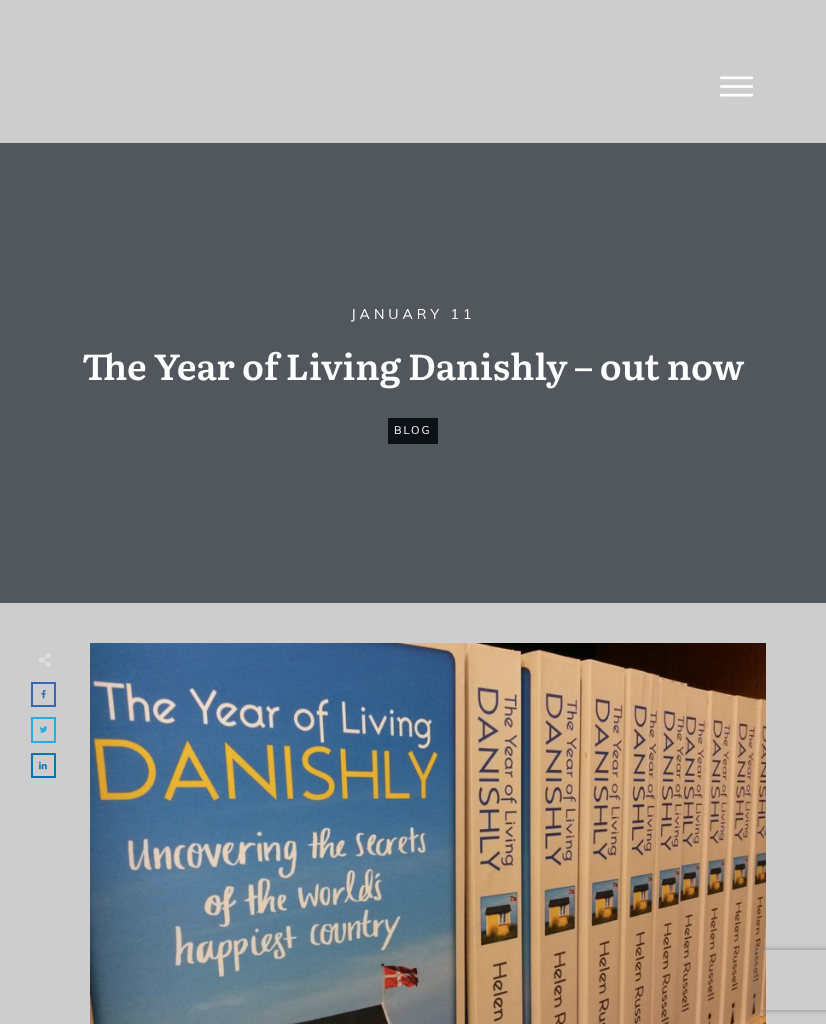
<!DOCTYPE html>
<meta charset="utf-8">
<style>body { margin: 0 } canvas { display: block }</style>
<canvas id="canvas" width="826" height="1024"></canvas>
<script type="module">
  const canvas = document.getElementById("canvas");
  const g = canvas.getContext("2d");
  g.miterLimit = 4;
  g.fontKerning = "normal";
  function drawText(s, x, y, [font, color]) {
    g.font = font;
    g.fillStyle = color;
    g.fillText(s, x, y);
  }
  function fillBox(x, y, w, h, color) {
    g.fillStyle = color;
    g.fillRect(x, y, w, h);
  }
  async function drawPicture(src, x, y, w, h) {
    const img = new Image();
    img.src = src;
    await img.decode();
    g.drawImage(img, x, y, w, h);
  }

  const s1 = ["14px Muli", "#FFFFFF"];
  const s2 = ["600 36px Literata", "#FFFFFF"];
  const s3 = ["11px Muli", "#FFFFFF"];

  fillBox(0, 0, 826, 1024, "#CDCDCD");
  await drawPicture("pic1.png", 720, 76, 33, 21);
  fillBox(0, 143, 826, 460, "#52575E");
  g.letterSpacing = "4px";
  drawText("JANUARY 11", 351, 319, s1);
  g.letterSpacing = "0px";
  drawText("The Year of Living Danishly – out now", 82, 380, s2);
  fillBox(388, 418, 50, 26, "#0C1115");
  g.letterSpacing = "2px";
  drawText("BLOG", 394, 434, s3);
  await drawPicture("pic2.png", 39, 653, 12, 14);
  g.strokeStyle = "#3569B4";
  g.lineWidth = 2;
  g.strokeRect(32, 683, 23, 23);
  await drawPicture("pic3.png", 41, 690, 5, 9);
  g.strokeStyle = "#29ACE0";
  g.strokeRect(32, 718, 23, 24);
  await drawPicture("pic4.png", 39, 726, 9, 7);
  g.strokeStyle = "#0177B5";
  g.strokeRect(32, 754, 23, 23);
  await drawPicture("pic5.png", 39, 761, 8, 9);
  await drawPicture("pic6.png", 90, 643, 676, 381);
  g.save();
  g.beginPath();
  g.moveTo(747, 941);
  g.lineTo(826, 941);
  g.lineTo(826, 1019);
  g.lineTo(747, 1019);
  g.closePath();
  g.moveTo(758, 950);
  g.lineTo(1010, 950);
  g.bezierCurveTo(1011, 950, 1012, 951, 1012, 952);
  g.lineTo(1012, 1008);
  g.bezierCurveTo(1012, 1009, 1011, 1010, 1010, 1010);
  g.lineTo(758, 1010);
  g.bezierCurveTo(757, 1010, 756, 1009, 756, 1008);
  g.lineTo(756, 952);
  g.bezierCurveTo(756, 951, 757, 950, 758, 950);
  g.closePath();
  g.clip("evenodd");
  g.fillStyle = "#808080";
  g.filter = "blur(2.5px)";
  g.beginPath();
  g.roundRect(756, 950, 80, 60, 2);
  g.fill();
  g.filter = "none";
  g.restore();
</script>
